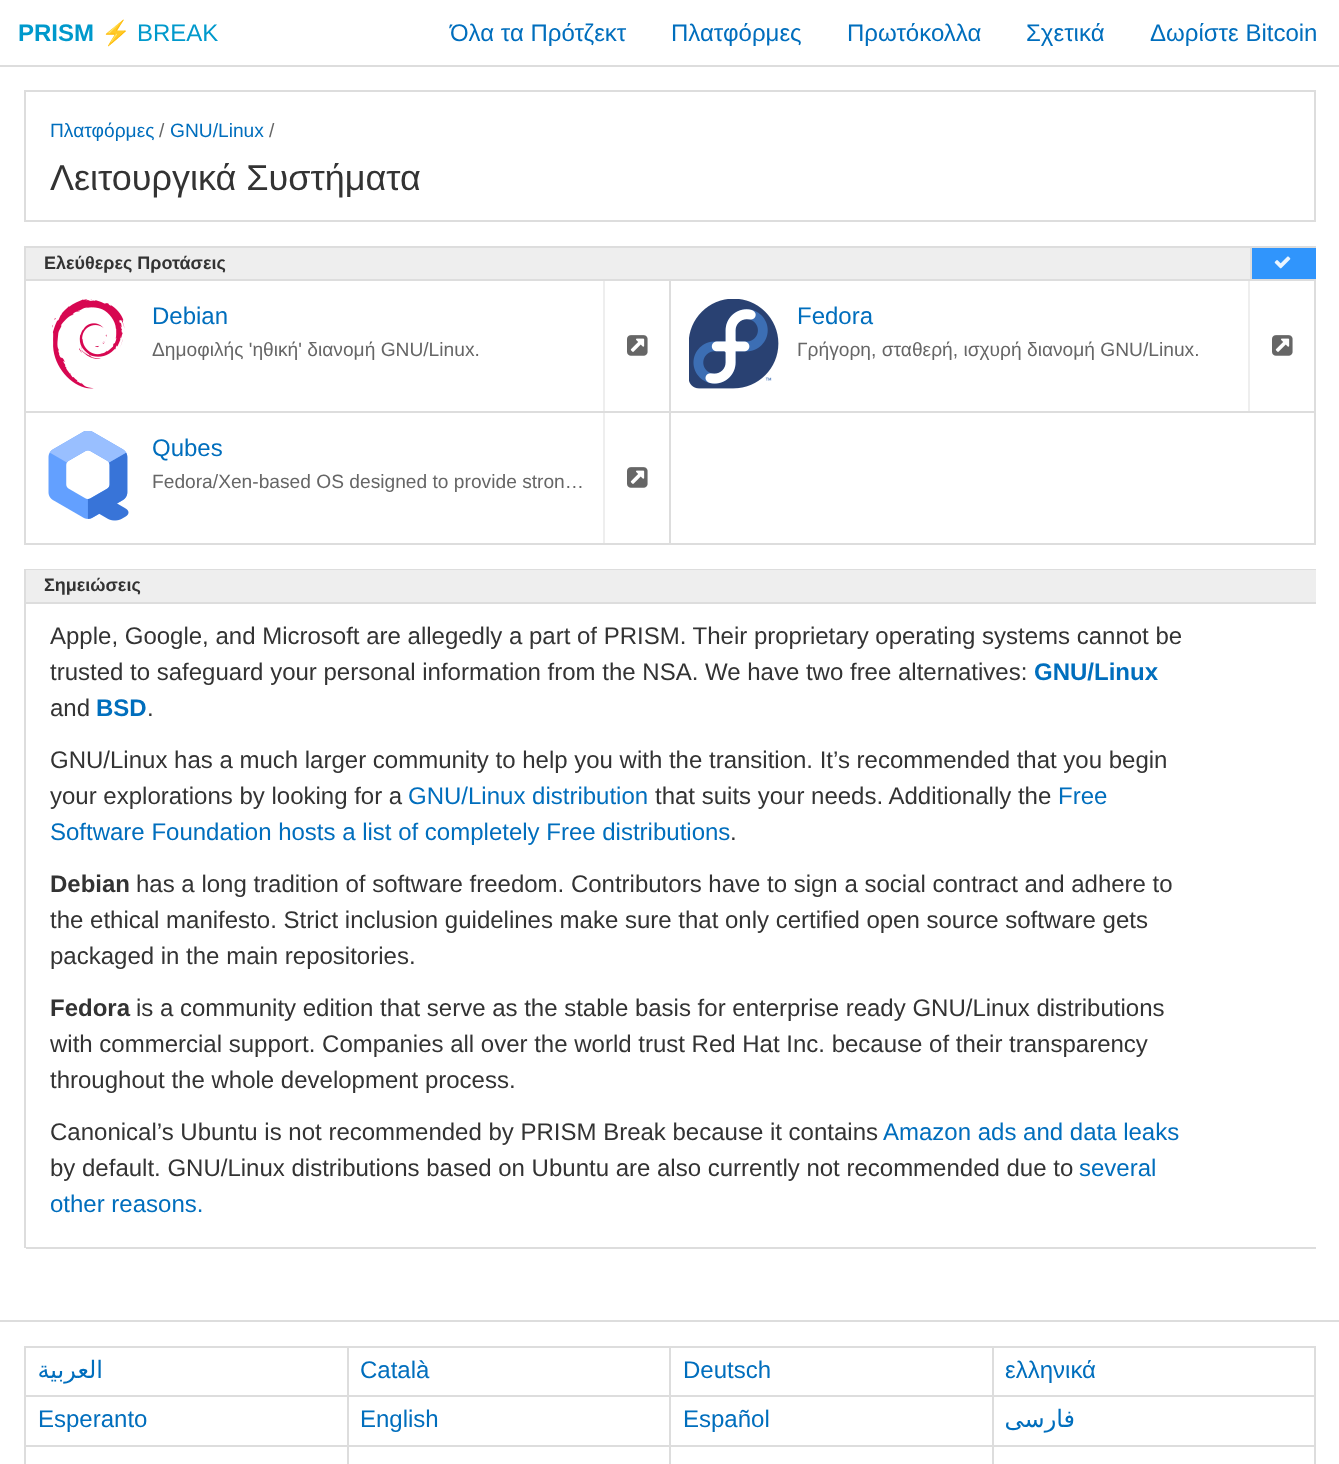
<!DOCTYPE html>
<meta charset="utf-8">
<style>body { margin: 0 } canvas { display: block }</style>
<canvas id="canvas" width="1339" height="1464"></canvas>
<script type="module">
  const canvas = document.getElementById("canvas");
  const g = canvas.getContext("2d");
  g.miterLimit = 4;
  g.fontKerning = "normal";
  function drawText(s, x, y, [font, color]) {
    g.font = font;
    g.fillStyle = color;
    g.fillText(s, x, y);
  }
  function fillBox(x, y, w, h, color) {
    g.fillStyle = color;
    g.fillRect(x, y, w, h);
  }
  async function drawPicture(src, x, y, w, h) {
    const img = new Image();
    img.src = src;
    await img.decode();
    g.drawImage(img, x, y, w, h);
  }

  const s1 = ["bold 24px Liberation Sans", "#0099CC"];
  const s2 = ["24px Noto Color Emoji", "#0099CC"];
  const s3 = ["24px Liberation Sans", "#0099CC"];
  const s4 = ["24px Liberation Sans", "#006EBD"];
  const s5 = ["19.2px Liberation Sans", "#006EBD"];
  const s6 = ["19.2px Liberation Sans", "#666666"];
  const s7 = ["36px Liberation Sans", "#333333"];
  const s8 = ["bold 18px Liberation Sans", "#333333"];
  const s9 = ["24px Liberation Sans", "#333333"];
  const s10 = ["bold 24px Liberation Sans", "#006EBD"];
  const s11 = ["bold 24px Liberation Sans", "#333333"];
  const s12 = ["24px DejaVu Sans", "#006EBD"];

  fillBox(0, 0, 1339, 1464, "#FFFFFF");
  fillBox(0, 65, 1339, 2, "#DDDDDD");
  drawText("PRISM", 18, 41, s1);
  drawText("⚡", 101, 41, s2);
  drawText("BREAK", 137, 41, s3);
  drawText("Όλα τα Πρότζεκτ", 450, 41, s4);
  drawText("Πλατφόρμες", 671, 41, s4);
  drawText("Πρωτόκολλα", 847, 41, s4);
  drawText("Σχετικά", 1026, 41, s4);
  drawText("Δωρίστε Bitcoin", 1150, 41, s4);
  g.strokeStyle = "#DDDDDD";
  g.lineWidth = 2;
  g.strokeRect(25, 91, 1290, 130);
  drawText("Πλατφόρμες", 50, 137, s5);
  drawText("/", 159, 137, s6);
  drawText("GNU/Linux", 170, 137, s5);
  drawText("/", 269, 137, s6);
  drawText("Λειτουργικά Συστήματα", 50, 190, s7);
  fillBox(24, 246, 1292, 2, "#DDDDDD");
  fillBox(24, 246, 2, 299, "#DDDDDD");
  fillBox(26, 248, 1224, 31, "#EEEEEE");
  fillBox(26, 279, 1290, 2, "#DDDDDD");
  drawText("Ελεύθερες Προτάσεις", 44, 269, s8);
  fillBox(1252, 248, 64, 31, "#3095FC");
  fillBox(1250, 248, 2, 31, "#DDDDDD");
  await drawPicture("pic1.png", 1274, 256, 17, 13);
  fillBox(669, 281, 2, 264, "#DDDDDD");
  fillBox(26, 411, 645, 2, "#DDDDDD");
  await drawPicture("pic2.png", 52, 299, 73, 90);
  drawText("Debian", 152, 324, s4);
  drawText("Δημοφιλής 'ηθική' διανομή GNU/Linux.", 152, 356, s6);
  fillBox(603, 281, 2, 130, "#EEEEEE");
  await drawPicture("pic3.png", 627, 335, 21, 21);
  fillBox(1314, 281, 2, 264, "#DDDDDD");
  fillBox(671, 411, 645, 2, "#DDDDDD");
  await drawPicture("pic4.png", 689, 299, 90, 90);
  drawText("Fedora", 797, 324, s4);
  drawText("Γρήγορη, σταθερή, ισχυρή διανομή GNU/Linux.", 797, 356, s6);
  fillBox(1248, 281, 2, 130, "#EEEEEE");
  await drawPicture("pic3.png", 1272, 335, 21, 21);
  fillBox(26, 543, 1290, 2, "#DDDDDD");
  await drawPicture("pic5.png", 48, 431, 81, 90);
  drawText("Qubes", 152, 456, s4);
  drawText("Fedora/Xen-based OS designed to provide stron…", 152, 488, s6);
  fillBox(603, 413, 2, 130, "#EEEEEE");
  await drawPicture("pic3.png", 627, 467, 21, 21);
  fillBox(24, 569, 1292, 1, "#DDDDDD");
  fillBox(24, 569, 2, 679, "#DDDDDD");
  fillBox(26, 570, 1290, 32, "#EEEEEE");
  fillBox(26, 602, 1290, 2, "#DDDDDD");
  drawText("Σημειώσεις", 44, 591, s8);
  fillBox(26, 1247, 1290, 2, "#DDDDDD");
  drawText("Apple, Google, and Microsoft are allegedly a part of PRISM. Their proprietary operating systems cannot be", 50, 644, s9);
  drawText("trusted to safeguard your personal information from the NSA. We have two free alternatives:", 50, 680, s9);
  drawText("GNU/Linux", 1034, 680, s10);
  drawText("and", 50, 716, s9);
  drawText("BSD", 96, 716, s10);
  drawText(".", 147, 716, s9);
  drawText("GNU/Linux has a much larger community to help you with the transition. It’s recommended that you begin", 50, 768, s9);
  drawText("your explorations by looking for a", 50, 804, s9);
  drawText("GNU/Linux distribution", 408, 804, s4);
  drawText("that suits your needs. Additionally the", 655, 804, s9);
  drawText("Free", 1058, 804, s4);
  drawText("Software Foundation hosts a list of completely Free distributions", 50, 840, s4);
  drawText(".", 730, 840, s9);
  drawText("Debian", 50, 892, s11);
  drawText("has a long tradition of software freedom. Contributors have to sign a social contract and adhere to", 136, 892, s9);
  drawText("the ethical manifesto. Strict inclusion guidelines make sure that only certified open source software gets", 50, 928, s9);
  drawText("packaged in the main repositories.", 50, 964, s9);
  drawText("Fedora", 50, 1016, s11);
  drawText("is a community edition that serve as the stable basis for enterprise ready GNU/Linux distributions", 136, 1016, s9);
  drawText("with commercial support. Companies all over the world trust Red Hat Inc. because of their transparency", 50, 1052, s9);
  drawText("throughout the whole development process.", 50, 1088, s9);
  drawText("Canonical’s Ubuntu is not recommended by PRISM Break because it contains", 50, 1140, s9);
  drawText("Amazon ads and data leaks", 883, 1140, s4);
  drawText("by default. GNU/Linux distributions based on Ubuntu are also currently not recommended due to", 50, 1176, s9);
  drawText("several", 1079, 1176, s4);
  drawText("other reasons.", 50, 1212, s4);
  fillBox(0, 1320, 1339, 2, "#DDDDDD");
  fillBox(24, 1346, 1292, 2, "#DDDDDD");
  fillBox(24, 1346, 2, 118, "#DDDDDD");
  fillBox(347, 1347, 2, 99, "#DDDDDD");
  fillBox(26, 1395, 322, 2, "#DDDDDD");
  g.direction = "rtl";
  drawText("العربية", 103, 1378, s12);
  fillBox(669, 1347, 2, 99, "#DDDDDD");
  fillBox(348, 1395, 323, 2, "#DDDDDD");
  g.direction = "ltr";
  drawText("Català", 360, 1378, s4);
  fillBox(992, 1347, 2, 99, "#DDDDDD");
  fillBox(671, 1395, 322, 2, "#DDDDDD");
  drawText("Deutsch", 683, 1378, s4);
  fillBox(1314, 1347, 2, 99, "#DDDDDD");
  fillBox(993, 1395, 323, 2, "#DDDDDD");
  drawText("ελληνικά", 1005, 1378, s4);
  fillBox(26, 1445, 1290, 2, "#DDDDDD");
  drawText("Esperanto", 38, 1427, s4);
  drawText("English", 360, 1427, s4);
  drawText("Español", 683, 1427, s4);
  g.direction = "rtl";
  drawText("فارسی", 1075, 1427, s12);
  fillBox(347, 1446, 2, 18, "#DDDDDD");
  fillBox(669, 1446, 2, 18, "#DDDDDD");
  fillBox(992, 1446, 2, 18, "#DDDDDD");
  fillBox(1314, 1446, 2, 18, "#DDDDDD");
</script>
